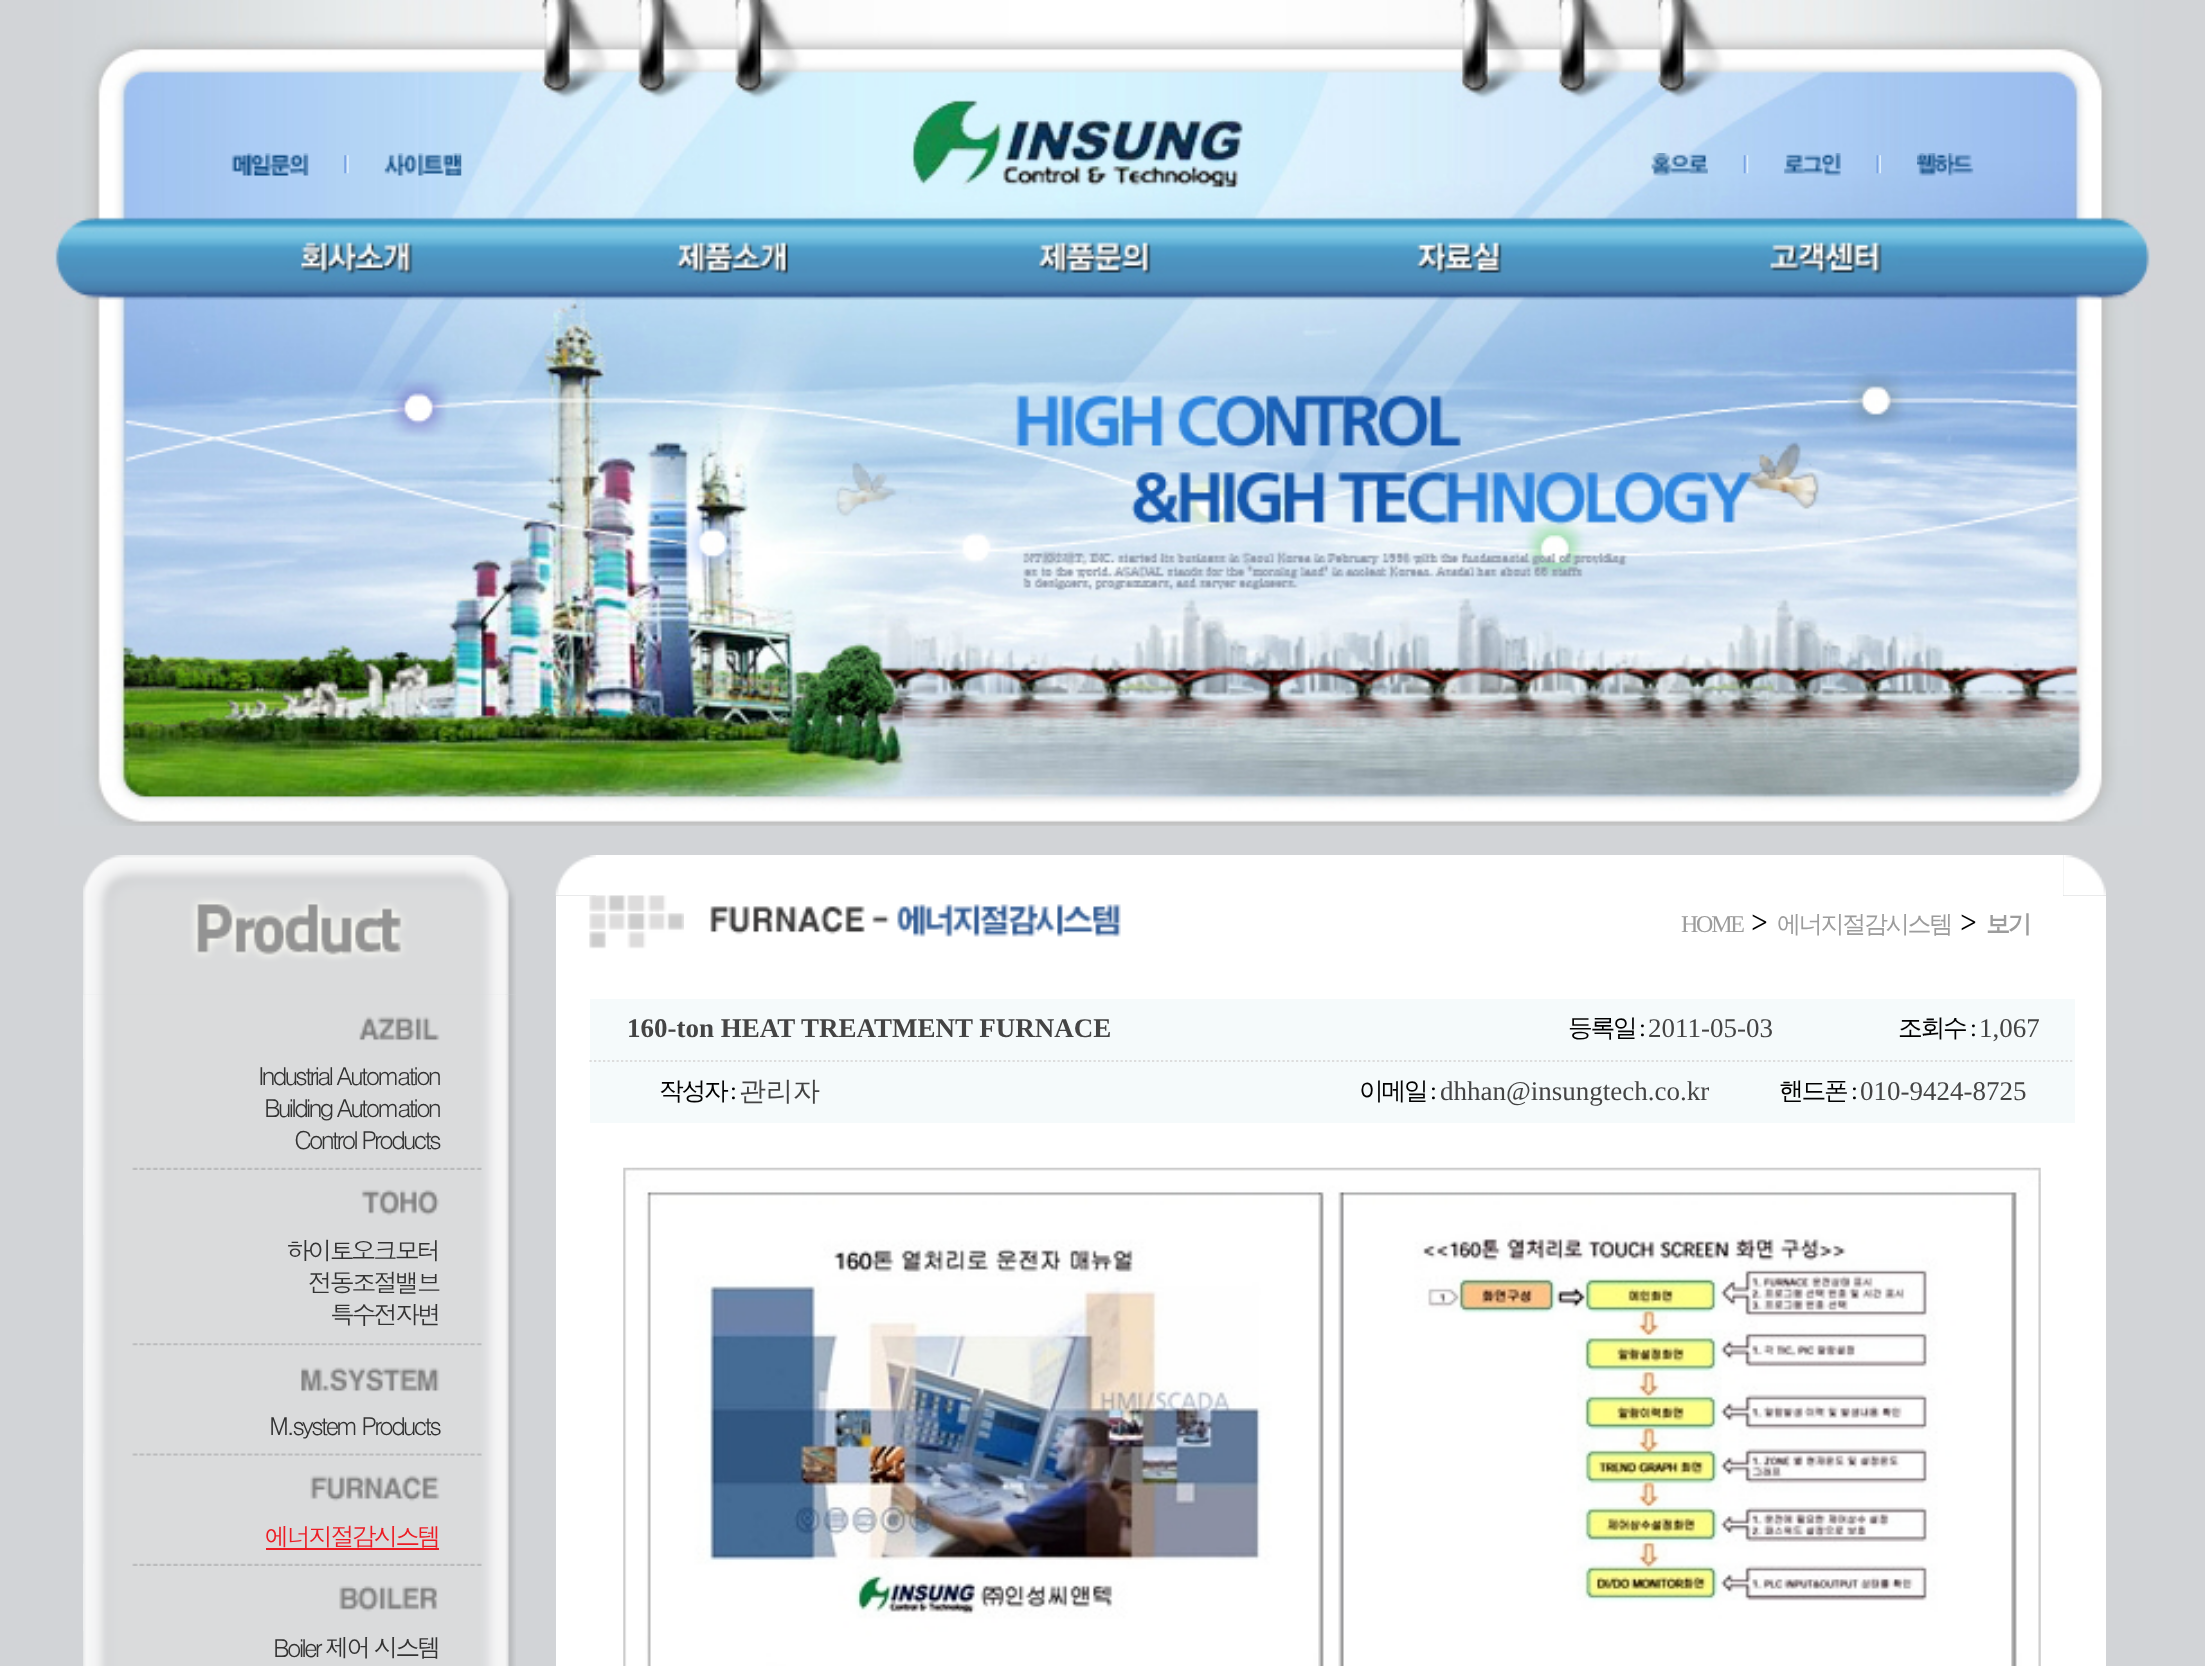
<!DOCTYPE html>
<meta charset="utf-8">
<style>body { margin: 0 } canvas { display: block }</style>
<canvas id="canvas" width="2205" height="1666"></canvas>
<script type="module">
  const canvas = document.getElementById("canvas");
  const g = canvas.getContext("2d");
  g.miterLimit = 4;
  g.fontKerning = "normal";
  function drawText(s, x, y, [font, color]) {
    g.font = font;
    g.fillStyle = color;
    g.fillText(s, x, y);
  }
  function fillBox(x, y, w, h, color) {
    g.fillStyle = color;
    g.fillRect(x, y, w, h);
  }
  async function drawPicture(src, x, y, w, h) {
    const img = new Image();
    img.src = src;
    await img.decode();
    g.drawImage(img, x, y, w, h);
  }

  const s1 = ["24px Liberation Serif", "#9C9C9C"];
  const s2 = ["27px Dotum", "#000000"];
  const s3 = ["500 24px WenQuanYi Zen Hei", "#9C9C9C"];
  const s4 = ["bold 24px WenQuanYi Zen Hei", "#9C9C9C"];
  const s5 = ["bold 27px Liberation Serif", "#444444"];
  const s6 = ["500 24.75px WenQuanYi Zen Hei", "#000000"];
  const s7 = ["24.75px Liberation Serif", "#000000"];
  const s8 = ["27px Liberation Serif", "#444444"];
  const s9 = ["500 27px WenQuanYi Zen Hei", "#444444"];
  const s10 = ["24.75px Dotum", "#333333"];
  const s11 = ["24.75px Dotum", "#ED1C24"];

  fillBox(0, 0, 2205, 1666, "#D2D4D7");
  await drawPicture("pic1.png", 54, 0, 2097, 826);
  await drawPicture("pic2.png", 231, 153, 78, 23);
  await drawPicture("pic3.png", 344, 155, 5, 19);
  await drawPicture("pic4.png", 384, 153, 78, 23);
  await drawPicture("pic5.png", 1651, 153, 57, 23);
  await drawPicture("pic6.png", 1743, 155, 6, 19);
  await drawPicture("pic7.png", 1784, 153, 57, 23);
  await drawPicture("pic8.png", 1876, 155, 5, 19);
  await drawPicture("pic9.png", 1917, 153, 57, 23);
  fillBox(556, 896, 1550, 770, "#FFFFFF");
  g.letterSpacing = "-2.25px";
  drawText("HOME", 1681, 932, s1);
  g.letterSpacing = "0px";
  drawText(">", 1751, 932, s2);
  g.letterSpacing = "-2.25px";
  drawText("에너지절감시스템", 1777, 932, s3);
  g.letterSpacing = "0px";
  drawText(">", 1960, 932, s2);
  g.letterSpacing = "-2.25px";
  drawText("보기", 1986, 932, s4);
  await drawPicture("pic10.png", 555, 855, 41, 41);
  fillBox(596, 855, 1467, 41, "#FFFFFF");
  await drawPicture("pic11.png", 2063, 855, 43, 41);
  await drawPicture("pic12.png", 589, 895, 95, 54);
  await drawPicture("pic13.png", 710, 904, 411, 33);
  fillBox(590, 999, 1485, 63, "#F5FAFB");
  g.beginPath();
  g.moveTo(589.5, 1061);
  g.lineTo(2074.5, 1061);
  g.strokeStyle = "#DDDDDD";
  g.lineWidth = 2.2;
  g.setLineDash([2.25, 2.25]);
  g.stroke();
  g.letterSpacing = "0px";
  drawText("160-ton HEAT TREATMENT FURNACE", 627, 1037, s5);
  g.letterSpacing = "-2.25px";
  drawText("등록일", 1568, 1036, s6);
  drawText(":", 1639, 1036, s7);
  g.letterSpacing = "0px";
  drawText("2011-05-03", 1648, 1037, s8);
  g.letterSpacing = "-2.25px";
  drawText("조회수", 1898, 1036, s6);
  drawText(":", 1970, 1036, s7);
  g.letterSpacing = "0px";
  drawText("1,067", 1979, 1037, s8);
  fillBox(590, 1062, 1485, 61, "#F5FAFB");
  g.letterSpacing = "-2.25px";
  drawText("작성자", 659, 1099, s6);
  drawText(":", 730, 1099, s7);
  g.letterSpacing = "0px";
  drawText("관리자", 739, 1100, s9);
  g.letterSpacing = "-2.25px";
  drawText("이메일", 1359, 1099, s6);
  drawText(":", 1430, 1099, s7);
  g.letterSpacing = "0px";
  drawText("dhhan@insungtech.co.kr", 1440, 1100, s8);
  g.letterSpacing = "-2.25px";
  drawText("핸드폰", 1779, 1099, s6);
  drawText(":", 1851, 1099, s7);
  g.letterSpacing = "0px";
  drawText("010-9424-8725", 1860, 1100, s8);
  await drawPicture("pic14.png", 623, 1167, 1418, 499);
  await drawPicture("pic16.png", 83, 994, 433, 672);
  await drawPicture("pic15.png", 83, 855, 433, 140);
  await drawPicture("pic17.png", 83, 994, 422, 65);
  g.letterSpacing = "-3px";
  drawText("Industrial Automation", 258, 1085, s10);
  drawText("Building Automation", 264, 1117, s10);
  drawText("Control Products", 294, 1149, s10);
  await drawPicture("pic18.png", 83, 1167, 399, 3);
  await drawPicture("pic19.png", 83, 1170, 357, 65);
  drawText("하이토오크모터", 286, 1260, s10);
  drawText("전동조절밸브", 308, 1292, s10);
  drawText("특수전자변", 330, 1324, s10);
  await drawPicture("pic20.png", 83, 1343, 399, 3);
  await drawPicture("pic21.png", 83, 1345, 399, 65);
  drawText("M.system Products", 269, 1435, s10);
  await drawPicture("pic22.png", 83, 1453, 399, 3);
  await drawPicture("pic23.png", 83, 1455, 398, 66);
  drawText("에너지절감시스템", 265, 1546, s11);
  fillBox(266, 1548, 173, 2, "#ED1C24");
  await drawPicture("pic18.png", 83, 1563, 399, 3);
  await drawPicture("pic24.png", 83, 1566, 355, 65);
  drawText("Boiler 제어 시스템", 273, 1657, s10);
</script>
